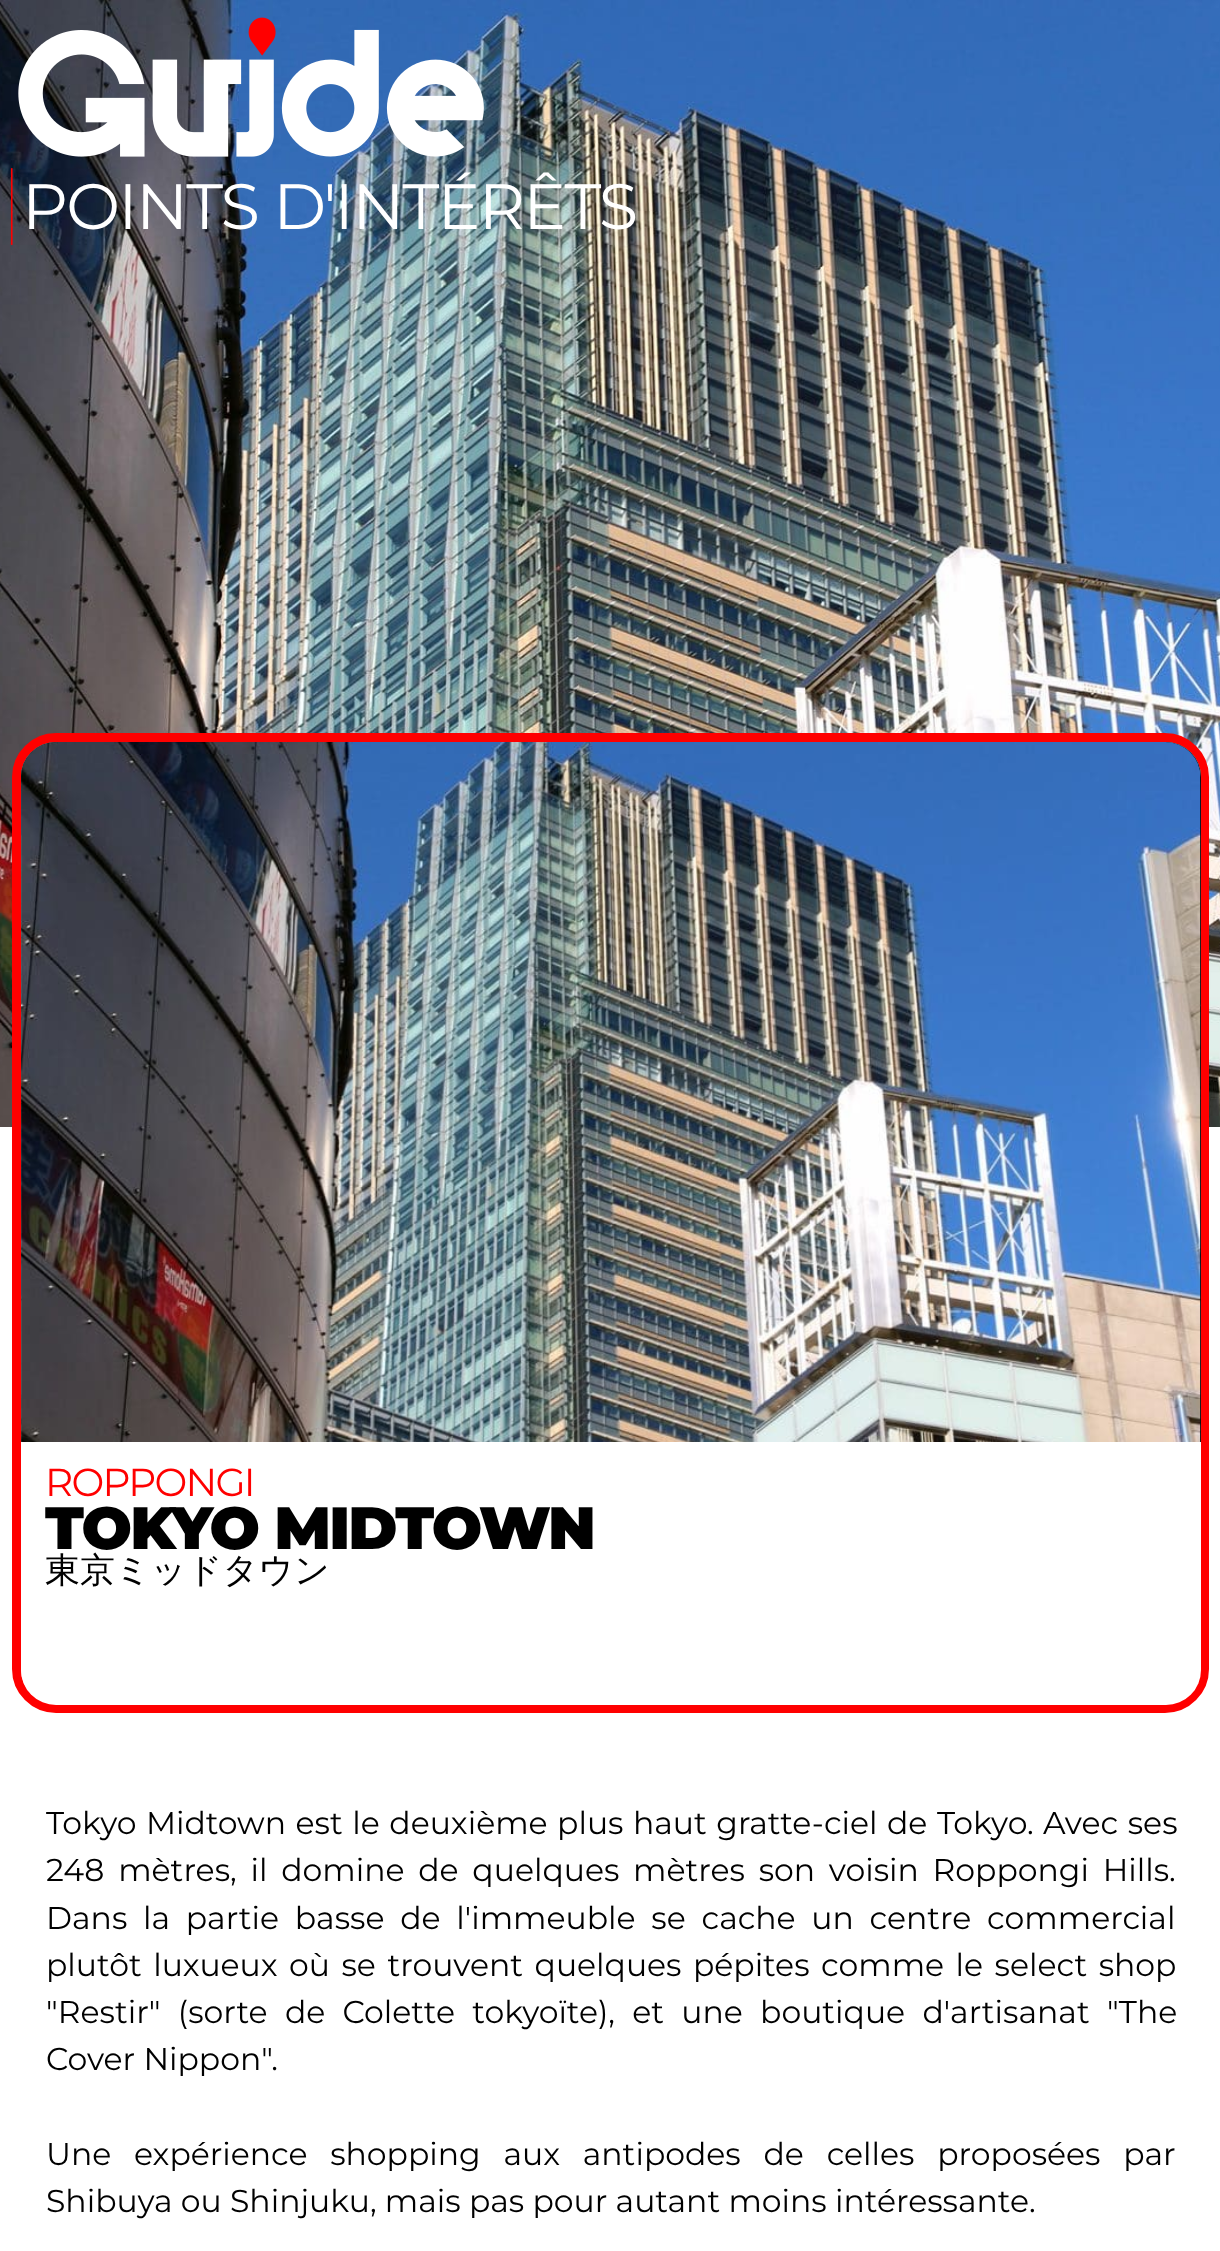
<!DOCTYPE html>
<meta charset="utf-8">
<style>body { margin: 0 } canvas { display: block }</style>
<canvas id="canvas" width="1220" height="2251"></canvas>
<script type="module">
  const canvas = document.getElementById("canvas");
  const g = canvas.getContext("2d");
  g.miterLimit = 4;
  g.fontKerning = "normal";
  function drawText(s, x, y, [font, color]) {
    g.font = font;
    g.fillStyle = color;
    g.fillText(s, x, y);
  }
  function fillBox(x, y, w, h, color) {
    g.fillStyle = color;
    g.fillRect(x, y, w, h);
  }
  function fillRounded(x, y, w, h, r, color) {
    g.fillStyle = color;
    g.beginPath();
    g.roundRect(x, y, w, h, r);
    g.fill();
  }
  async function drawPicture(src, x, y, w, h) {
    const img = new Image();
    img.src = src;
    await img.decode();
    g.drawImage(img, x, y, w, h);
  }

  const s1 = ["100 82px Montserrat", "#FF0000"];
  const s2 = ["64.1px Montserrat", "#FFFFFF"];
  const s3 = ["39px Montserrat", "#FF0000"];
  const s4 = ["900 59.5px Montserrat", "#000000"];
  const s5 = ["500 35px WenQuanYi Zen Hei", "#000000"];
  const s6 = ["31.5px Montserrat", "#000000"];

  fillBox(0, 0, 1220, 2251, "#FFFFFF");
  await drawPicture("pic1.png", 0, 0, 1220, 1127);
  await drawPicture("pic2.png", 18, 17, 466, 140);
  g.letterSpacing = "-1.75px";
  drawText("|", 0, 229, s1);
  drawText("POINTS D'INTÉRÊTS", 22, 229, s2);
  g.beginPath();
  g.roundRect(16.5, 737.5, 1188, 971, 39.5);
  g.strokeStyle = "#FF0000";
  g.lineWidth = 9;
  g.stroke();
  fillRounded(21, 742, 1180, 963, 35, "#FFFFFF");
  g.fillStyle = "#000000";
  g.beginPath();
  g.roundRect(21, 742, 1180, 700, [35, 35, 0, 0]);
  g.fill();
  await drawPicture("pic3.png", 21, 742, 1180, 700);
  drawText("ROPPONGI", 45, 1496, s3);
  drawText("TOKYO MIDTOWN", 45, 1549, s4);
  g.letterSpacing = "0px";
  drawText("東京ミッドタウン", 45, 1582, s5);
  g.wordSpacing = "1.25px";
  drawText("Tokyo Midtown est le deuxième plus haut gratte-ciel de Tokyo. Avec ses", 46, 1834, s6);
  g.wordSpacing = "5.5px";
  drawText("248 mètres, il domine de quelques mètres son voisin Roppongi Hills.", 46, 1881, s6);
  g.wordSpacing = "7.5px";
  drawText("Dans la partie basse de l'immeuble se cache un centre commercial", 46, 1929, s6);
  g.wordSpacing = "3.25px";
  drawText("plutôt luxueux où se trouvent quelques pépites comme le select shop", 46, 1976, s6);
  g.wordSpacing = "9px";
  drawText("\"Restir\" (sorte de Colette tokyoïte), et une boutique d'artisanat \"The", 46, 2023, s6);
  g.wordSpacing = "0px";
  drawText("Cover Nippon\".", 46, 2070, s6);
  g.wordSpacing = "14.5px";
  drawText("Une expérience shopping aux antipodes de celles proposées par", 46, 2165, s6);
  g.wordSpacing = "0px";
  drawText("Shibuya ou Shinjuku, mais pas pour autant moins intéressante.", 46, 2212, s6);
</script>
